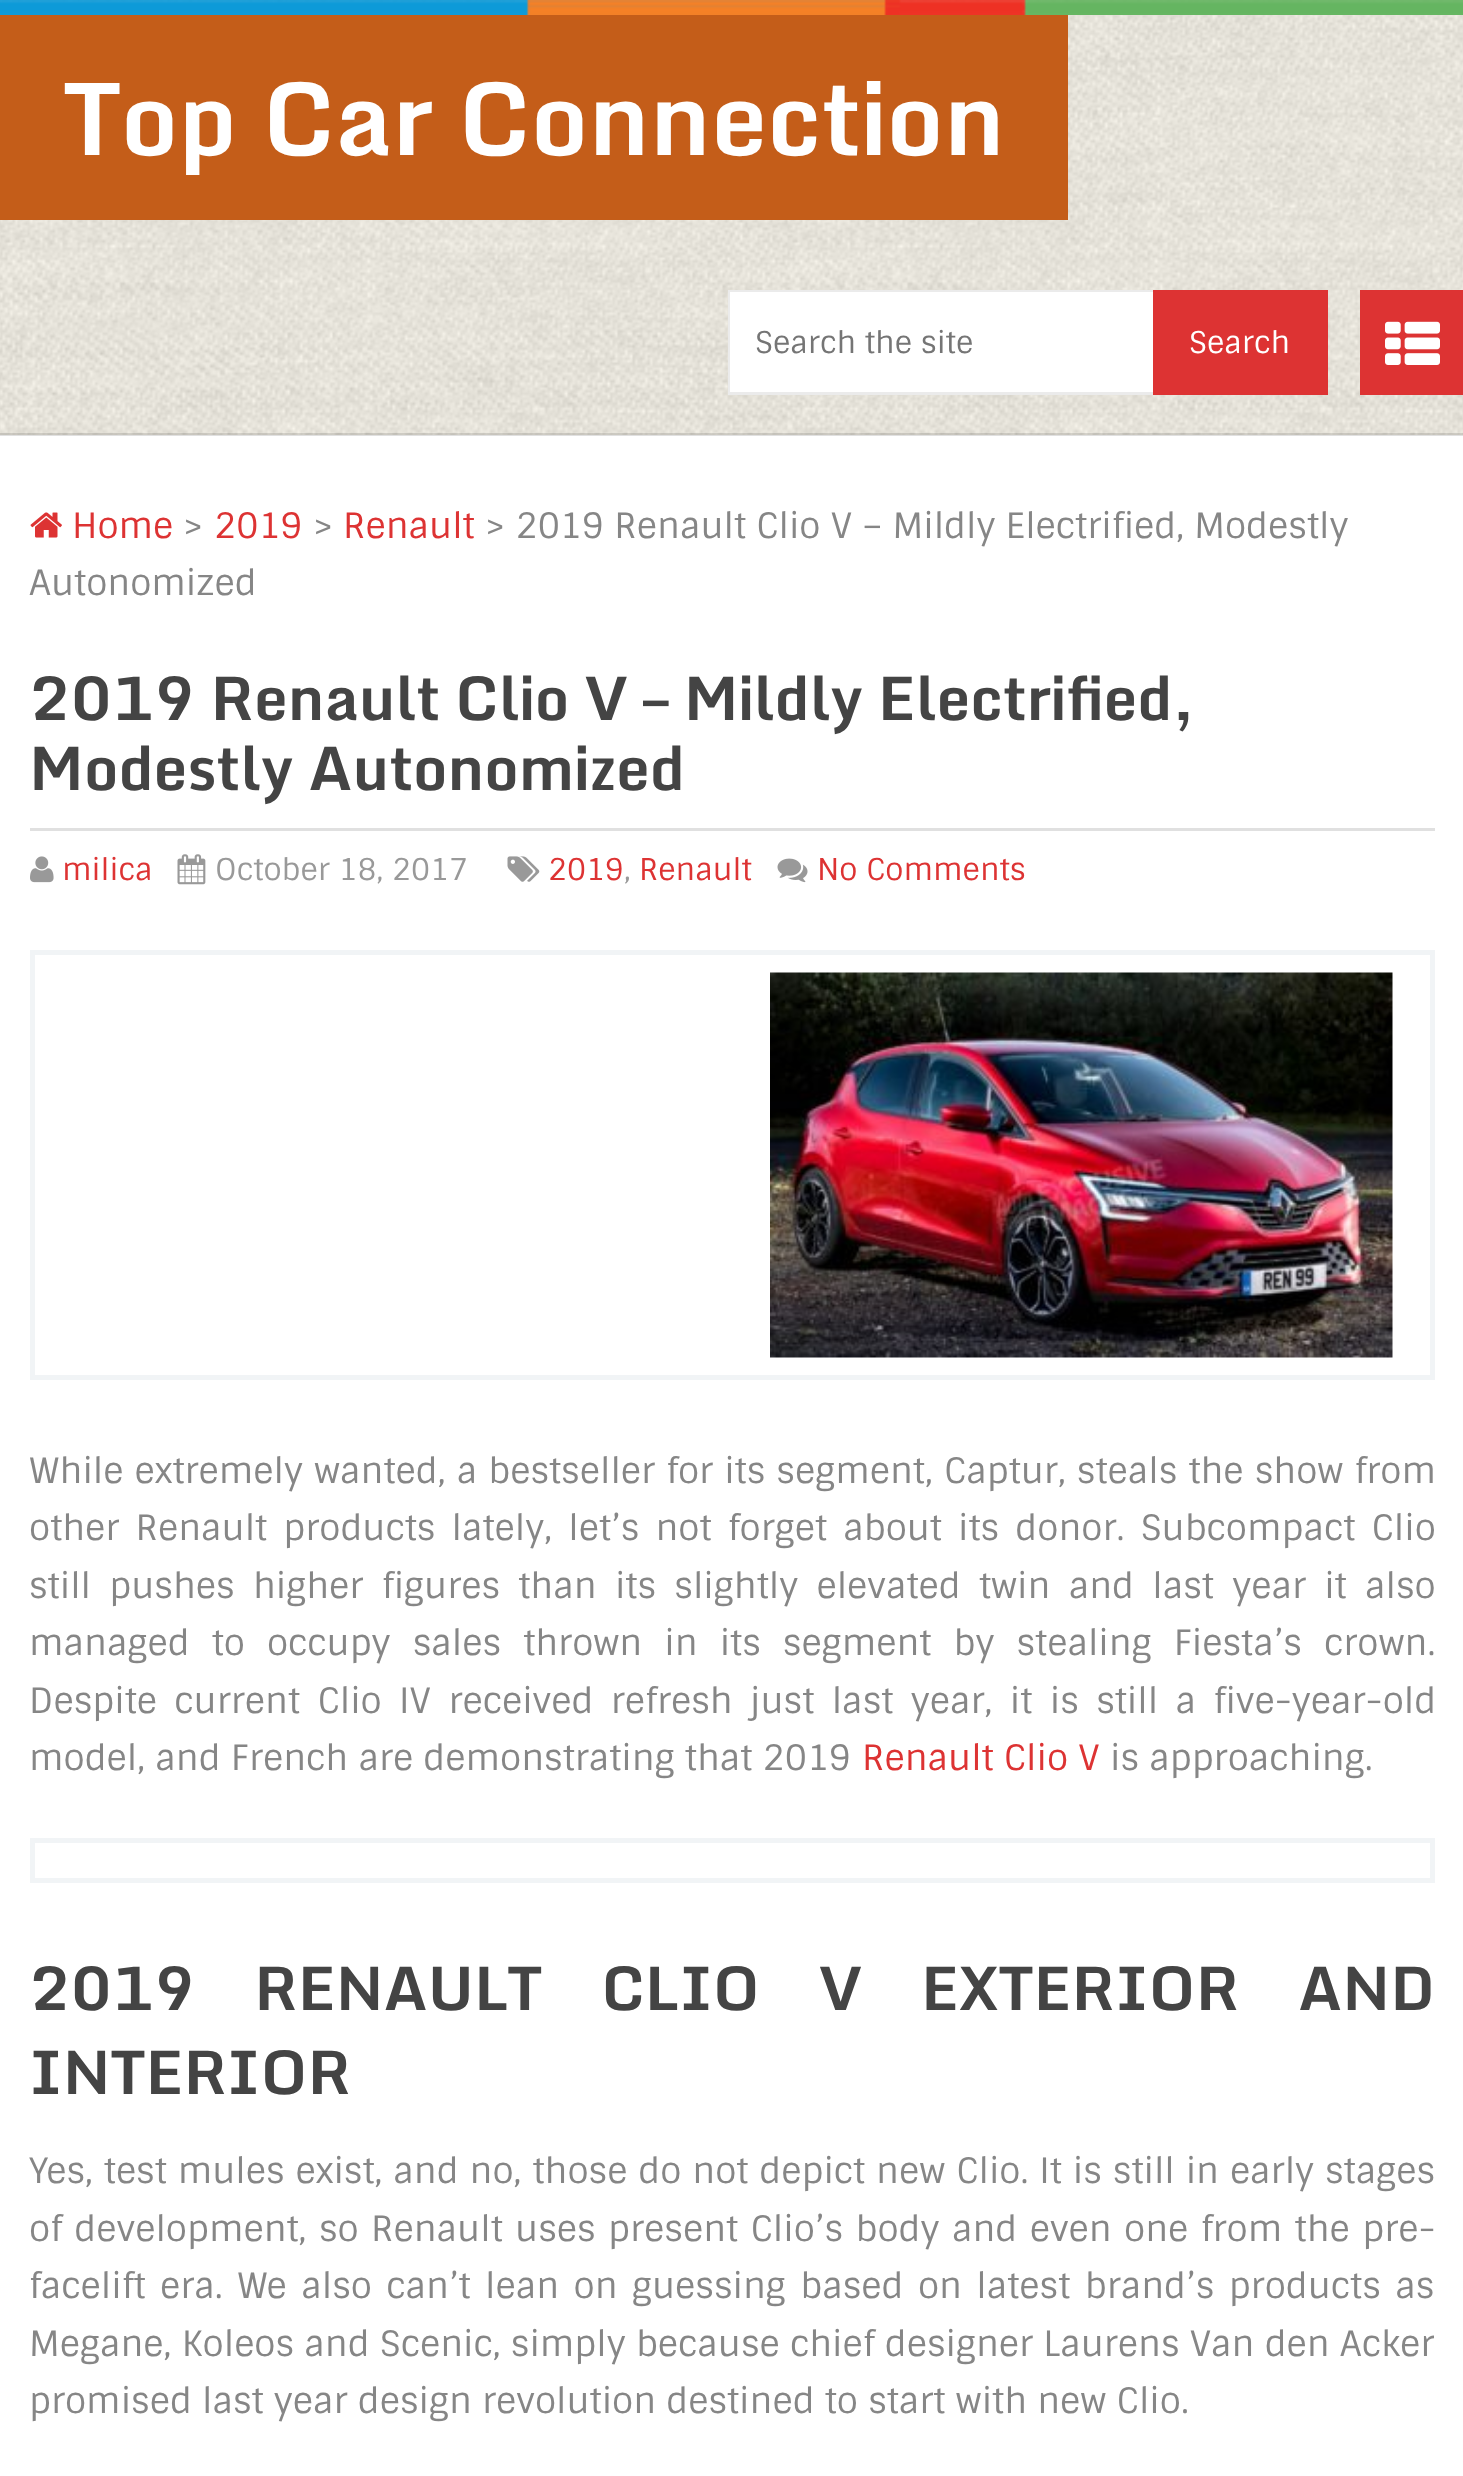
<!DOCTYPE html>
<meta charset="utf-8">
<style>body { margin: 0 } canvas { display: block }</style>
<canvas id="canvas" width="1463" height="2476"></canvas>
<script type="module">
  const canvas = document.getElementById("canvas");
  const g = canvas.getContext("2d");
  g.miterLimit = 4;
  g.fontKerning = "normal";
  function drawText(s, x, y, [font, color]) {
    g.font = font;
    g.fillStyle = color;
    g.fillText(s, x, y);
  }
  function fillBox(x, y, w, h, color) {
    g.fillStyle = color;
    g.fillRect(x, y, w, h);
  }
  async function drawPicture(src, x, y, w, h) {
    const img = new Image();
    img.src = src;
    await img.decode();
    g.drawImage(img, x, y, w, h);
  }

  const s1 = ["bold 100px Monda", "#FFFFFF"];
  const s2 = ["30px Sintony", "#757575"];
  const s3 = ["30px Sintony", "#FFFFFF"];
  const s4 = ["35px Sintony", "#DD3333"];
  const s5 = ["35px Sintony", "#868686"];
  const s6 = ["bold 60px Monda", "#444444"];
  const s7 = ["30px Sintony", "#DD3333"];
  const s8 = ["30px Sintony", "#999999"];

  fillBox(0, 0, 1463, 2476, "#FFFFFF");
  await drawPicture("pic1.png", 0, 0, 1463, 435);
  fillBox(0, 433, 1463, 3, "rgba(0, 0, 0, 0.12)");
  await drawPicture("pic2.png", 0, 0, 1463, 15);
  fillBox(0, 15, 1068, 205, "#C45D19");
  drawText("Top Car Connection", 63, 155, s1);
  fillBox(728, 290, 425, 105, "#FFFFFF");
  g.fillStyle = "#EBEBEB";
  g.beginPath();
  g.moveTo(728, 290);
  g.lineTo(1178, 290);
  g.lineTo(1178, 292);
  g.lineTo(730, 292);
  g.closePath();
  g.fill();
  g.beginPath();
  g.moveTo(1178, 395);
  g.lineTo(728, 395);
  g.lineTo(730, 392);
  g.lineTo(1178, 392);
  g.closePath();
  g.fill();
  g.fillStyle = "rgba(0, 0, 0, 0.08)";
  g.beginPath();
  g.moveTo(728, 395);
  g.lineTo(728, 290);
  g.lineTo(730, 292);
  g.lineTo(730, 392);
  g.closePath();
  g.fill();
  drawText("Search the site", 755, 353, s2);
  fillBox(1153, 290, 175, 105, "#DD3333");
  drawText("Search", 1189, 353, s3);
  fillBox(1360, 290, 103, 105, "#DD3333");
  await drawPicture("pic3.png", 1385, 321, 55, 44);
  await drawPicture("pic4.png", 30, 512, 32, 26);
  drawText("Home", 72, 538, s4);
  drawText(">", 183, 538, s5);
  drawText("2019", 214, 538, s4);
  drawText(">", 313, 538, s5);
  drawText("Renault", 343, 538, s4);
  drawText("> 2019 Renault Clio V – Mildly Electrified, Modestly", 485, 538, s5);
  drawText("Autonomized", 29, 595, s5);
  fillBox(30, 828, 1405, 3, "#E0E0E0");
  drawText("2019 Renault Clio V – Mildly Electrified,", 29, 720, s6);
  drawText("Modestly Autonomized", 29, 790, s6);
  await drawPicture("pic5.png", 30, 856, 24, 27);
  drawText("milica", 62, 880, s7);
  await drawPicture("pic6.png", 177, 854, 29, 31);
  drawText("October 18, 2017", 215, 880, s8);
  await drawPicture("pic7.png", 507, 856, 33, 26);
  drawText("2019", 548, 880, s7);
  drawText(",", 624, 880, s8);
  drawText("Renault", 639, 880, s7);
  await drawPicture("pic8.png", 777, 858, 31, 25);
  drawText("No Comments", 817, 880, s7);
  fillBox(30, 950, 1405, 5, "#F1F4F6");
  fillBox(1430, 950, 5, 430, "#F1F4F6");
  fillBox(30, 1375, 1405, 5, "#F1F4F6");
  fillBox(30, 950, 5, 430, "#F1F4F6");
  await drawPicture("pic9.png", 770, 972, 623, 386);
  g.wordSpacing = "0.9px";
  drawText("While extremely wanted, a bestseller for its segment, Captur, steals the show from", 29, 1483, s5);
  g.wordSpacing = "6px";
  drawText("other Renault products lately, let’s not forget about its donor. Subcompact Clio", 29, 1540, s5);
  g.wordSpacing = "8.1px";
  drawText("still pushes higher figures than its slightly elevated twin and last year it also", 29, 1598, s5);
  g.wordSpacing = "11.9px";
  drawText("managed to occupy sales thrown in its segment by stealing Fiesta’s crown.", 29, 1655, s5);
  g.wordSpacing = "7.25px";
  drawText("Despite current Clio IV received refresh just last year, it is still a five-year-old", 29, 1713, s5);
  g.wordSpacing = "0px";
  drawText("model, and French are demonstrating that 2019", 29, 1770, s5);
  drawText("Renault Clio V", 862, 1770, s4);
  drawText("is approaching.", 1110, 1770, s5);
  fillBox(30, 1838, 1405, 5, "#F1F4F6");
  fillBox(1430, 1838, 5, 45, "#F1F4F6");
  fillBox(30, 1878, 1405, 5, "#F1F4F6");
  fillBox(30, 1838, 5, 45, "#F1F4F6");
  g.wordSpacing = "43.75px";
  drawText("2019 RENAULT CLIO V EXTERIOR AND", 29, 2010, s6);
  g.wordSpacing = "0px";
  drawText("INTERIOR", 29, 2094, s6);
  g.wordSpacing = "0.75px";
  drawText("Yes, test mules exist, and no, those do not depict new Clio. It is still in early stages", 29, 2183, s5);
  g.wordSpacing = "2.25px";
  drawText("of development, so Renault uses present Clio’s body and even one from the pre-", 29, 2241, s5);
  g.wordSpacing = "4.25px";
  drawText("facelift era. We also can’t lean on guessing based on latest brand’s products as", 29, 2298, s5);
  g.wordSpacing = "0px";
  drawText("Megane, Koleos and Scenic, simply because chief designer Laurens Van den Acker", 29, 2356, s5);
  drawText("promised last year design revolution destined to start with new Clio.", 29, 2413, s5);
</script>
